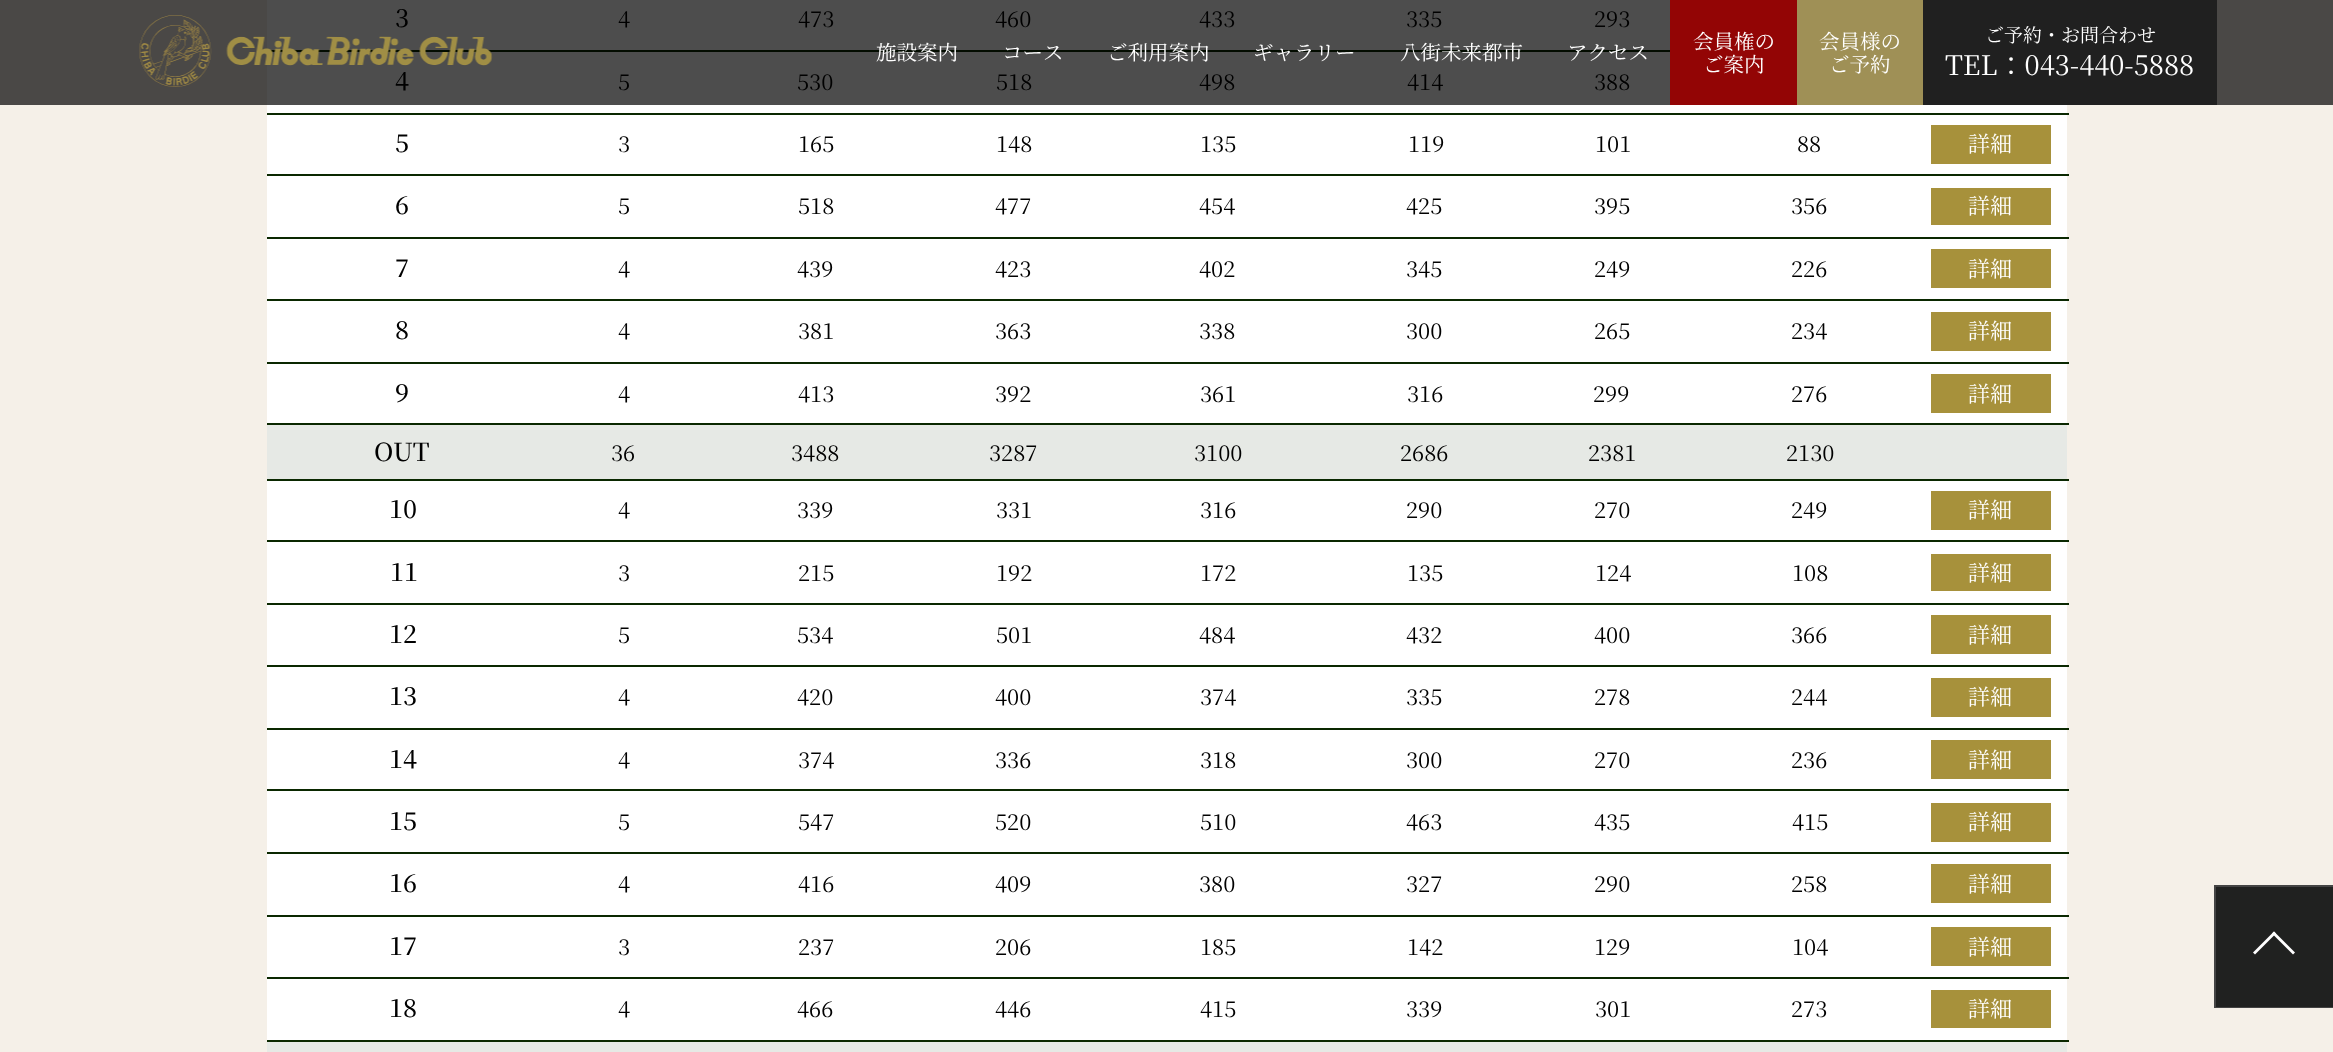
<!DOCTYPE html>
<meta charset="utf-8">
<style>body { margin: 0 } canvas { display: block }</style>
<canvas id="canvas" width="2333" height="1052"></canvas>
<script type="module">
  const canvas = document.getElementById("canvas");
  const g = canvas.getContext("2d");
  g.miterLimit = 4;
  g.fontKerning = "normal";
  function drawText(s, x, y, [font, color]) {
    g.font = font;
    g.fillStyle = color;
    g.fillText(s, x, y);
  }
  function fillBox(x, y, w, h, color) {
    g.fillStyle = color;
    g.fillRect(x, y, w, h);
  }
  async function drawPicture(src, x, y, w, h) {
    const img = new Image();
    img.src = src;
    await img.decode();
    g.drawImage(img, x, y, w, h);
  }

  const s1 = ["500 25px Noto Serif JP", "#000000"];
  const s2 = ["22px Noto Serif JP", "#000000"];
  const s3 = ["22px Noto Serif JP", "#FFFFFF"];
  const s4 = ["20.5px Noto Serif JP", "#FFFFFF"];
  const s5 = ["19px Noto Serif JP", "#FFFFFF"];
  const s6 = ["27.1px Noto Serif JP", "#FFFFFF"];

  fillBox(0, 0, 2333, 1052, "#F5F0E8");
  fillBox(0, 0, 2333, 105, "#4A4846");
  fillBox(267, 0, 1403, 50, "#4D4D4D");
  fillBox(267, 50, 1403, 2, "#030C00");
  drawText("3", 395, 27, s1);
  drawText("4", 618, 27, s2);
  drawText("473", 798, 27, s2);
  drawText("460", 995, 27, s2);
  drawText("433", 1199, 27, s2);
  drawText("335", 1406, 27, s2);
  drawText("293", 1594, 27, s2);
  fillBox(267, 105, 1800, 8, "#FFFFFF");
  fillBox(267, 52, 1403, 53, "#4D4D4D");
  fillBox(267, 113, 1802, 2, "#0A2800");
  drawText("4", 395, 90, s1);
  drawText("5", 618, 90, s2);
  drawText("530", 797, 90, s2);
  drawText("518", 996, 90, s2);
  drawText("498", 1199, 90, s2);
  drawText("414", 1407, 90, s2);
  drawText("388", 1594, 90, s2);
  fillBox(267, 115, 1800, 59, "#FFFFFF");
  fillBox(267, 174, 1802, 2, "#0A2800");
  drawText("5", 395, 152, s1);
  drawText("3", 618, 152, s2);
  drawText("165", 798, 152, s2);
  drawText("148", 996, 152, s2);
  drawText("135", 1200, 152, s2);
  drawText("119", 1408, 152, s2);
  drawText("101", 1595, 152, s2);
  drawText("88", 1797, 152, s2);
  fillBox(1931, 125, 120, 39, "#A7913B");
  drawText("詳細", 1968, 152, s3);
  fillBox(267, 176, 1800, 61, "#FFFFFF");
  fillBox(267, 237, 1802, 2, "#0A2800");
  drawText("6", 395, 214, s1);
  drawText("5", 618, 214, s2);
  drawText("518", 798, 214, s2);
  drawText("477", 995, 214, s2);
  drawText("454", 1199, 214, s2);
  drawText("425", 1406, 214, s2);
  drawText("395", 1594, 214, s2);
  drawText("356", 1791, 214, s2);
  fillBox(1931, 188, 120, 37, "#A7913B");
  drawText("詳細", 1968, 214, s3);
  fillBox(267, 239, 1800, 60, "#FFFFFF");
  fillBox(267, 299, 1802, 2, "#0A2800");
  drawText("7", 395, 277, s1);
  drawText("4", 618, 277, s2);
  drawText("439", 797, 277, s2);
  drawText("423", 995, 277, s2);
  drawText("402", 1199, 277, s2);
  drawText("345", 1406, 277, s2);
  drawText("249", 1594, 277, s2);
  drawText("226", 1791, 277, s2);
  fillBox(1931, 249, 120, 39, "#A7913B");
  drawText("詳細", 1968, 277, s3);
  fillBox(267, 301, 1800, 61, "#FFFFFF");
  fillBox(267, 362, 1802, 2, "#0A2800");
  drawText("8", 395, 339, s1);
  drawText("4", 618, 339, s2);
  drawText("381", 798, 339, s2);
  drawText("363", 995, 339, s2);
  drawText("338", 1199, 339, s2);
  drawText("300", 1406, 339, s2);
  drawText("265", 1594, 339, s2);
  drawText("234", 1791, 339, s2);
  fillBox(1931, 312, 120, 39, "#A7913B");
  drawText("詳細", 1968, 339, s3);
  fillBox(267, 364, 1800, 59, "#FFFFFF");
  fillBox(267, 423, 1802, 2, "#0A2800");
  drawText("9", 395, 402, s1);
  drawText("4", 618, 402, s2);
  drawText("413", 798, 402, s2);
  drawText("392", 995, 402, s2);
  drawText("361", 1200, 402, s2);
  drawText("316", 1407, 402, s2);
  drawText("299", 1593, 402, s2);
  drawText("276", 1791, 402, s2);
  fillBox(1931, 374, 120, 39, "#A7913B");
  drawText("詳細", 1968, 402, s3);
  fillBox(267, 425, 1800, 54, "#E6E9E5");
  fillBox(267, 479, 1802, 2, "#0A2800");
  drawText("OUT", 374, 461, s1);
  drawText("36", 611, 461, s2);
  drawText("3488", 791, 461, s2);
  drawText("3287", 989, 461, s2);
  drawText("3100", 1194, 461, s2);
  drawText("2686", 1400, 461, s2);
  drawText("2381", 1588, 461, s2);
  drawText("2130", 1786, 461, s2);
  fillBox(267, 481, 1800, 59, "#FFFFFF");
  fillBox(267, 540, 1802, 2, "#0A2800");
  drawText("10", 389, 518, s1);
  drawText("4", 618, 518, s2);
  drawText("339", 797, 518, s2);
  drawText("331", 996, 518, s2);
  drawText("316", 1200, 518, s2);
  drawText("290", 1406, 518, s2);
  drawText("270", 1594, 518, s2);
  drawText("249", 1791, 518, s2);
  fillBox(1931, 491, 120, 39, "#A7913B");
  drawText("詳細", 1968, 518, s3);
  fillBox(267, 542, 1800, 61, "#FFFFFF");
  fillBox(267, 603, 1802, 2, "#0A2800");
  drawText("11", 390, 581, s1);
  drawText("3", 618, 581, s2);
  drawText("215", 798, 581, s2);
  drawText("192", 996, 581, s2);
  drawText("172", 1200, 581, s2);
  drawText("135", 1407, 581, s2);
  drawText("124", 1595, 581, s2);
  drawText("108", 1792, 581, s2);
  fillBox(1931, 554, 120, 37, "#A7913B");
  drawText("詳細", 1968, 581, s3);
  fillBox(267, 605, 1800, 60, "#FFFFFF");
  fillBox(267, 665, 1802, 2, "#0A2800");
  drawText("12", 389, 643, s1);
  drawText("5", 618, 643, s2);
  drawText("534", 797, 643, s2);
  drawText("501", 996, 643, s2);
  drawText("484", 1199, 643, s2);
  drawText("432", 1406, 643, s2);
  drawText("400", 1594, 643, s2);
  drawText("366", 1791, 643, s2);
  fillBox(1931, 615, 120, 39, "#A7913B");
  drawText("詳細", 1968, 643, s3);
  fillBox(267, 667, 1800, 61, "#FFFFFF");
  fillBox(267, 728, 1802, 2, "#0A2800");
  drawText("13", 389, 705, s1);
  drawText("4", 618, 705, s2);
  drawText("420", 797, 705, s2);
  drawText("400", 995, 705, s2);
  drawText("374", 1200, 705, s2);
  drawText("335", 1406, 705, s2);
  drawText("278", 1594, 705, s2);
  drawText("244", 1791, 705, s2);
  fillBox(1931, 678, 120, 39, "#A7913B");
  drawText("詳細", 1968, 705, s3);
  fillBox(267, 730, 1800, 59, "#FFFFFF");
  fillBox(267, 789, 1802, 2, "#0A2800");
  drawText("14", 389, 768, s1);
  drawText("4", 618, 768, s2);
  drawText("374", 798, 768, s2);
  drawText("336", 995, 768, s2);
  drawText("318", 1200, 768, s2);
  drawText("300", 1406, 768, s2);
  drawText("270", 1594, 768, s2);
  drawText("236", 1791, 768, s2);
  fillBox(1931, 740, 120, 39, "#A7913B");
  drawText("詳細", 1968, 768, s3);
  fillBox(267, 791, 1800, 61, "#FFFFFF");
  fillBox(267, 852, 1802, 2, "#0A2800");
  drawText("15", 389, 830, s1);
  drawText("5", 618, 830, s2);
  drawText("547", 798, 830, s2);
  drawText("520", 995, 830, s2);
  drawText("510", 1200, 830, s2);
  drawText("463", 1406, 830, s2);
  drawText("435", 1594, 830, s2);
  drawText("415", 1792, 830, s2);
  fillBox(1931, 803, 120, 39, "#A7913B");
  drawText("詳細", 1968, 830, s3);
  fillBox(267, 854, 1800, 61, "#FFFFFF");
  fillBox(267, 915, 1802, 2, "#0A2800");
  drawText("16", 389, 892, s1);
  drawText("4", 618, 892, s2);
  drawText("416", 798, 892, s2);
  drawText("409", 995, 892, s2);
  drawText("380", 1199, 892, s2);
  drawText("327", 1406, 892, s2);
  drawText("290", 1594, 892, s2);
  drawText("258", 1791, 892, s2);
  fillBox(1931, 864, 120, 39, "#A7913B");
  drawText("詳細", 1968, 892, s3);
  fillBox(267, 917, 1800, 60, "#FFFFFF");
  fillBox(267, 977, 1802, 2, "#0A2800");
  drawText("17", 389, 955, s1);
  drawText("3", 618, 955, s2);
  drawText("237", 798, 955, s2);
  drawText("206", 995, 955, s2);
  drawText("185", 1200, 955, s2);
  drawText("142", 1407, 955, s2);
  drawText("129", 1594, 955, s2);
  drawText("104", 1792, 955, s2);
  fillBox(1931, 927, 120, 39, "#A7913B");
  drawText("詳細", 1968, 955, s3);
  fillBox(267, 979, 1800, 61, "#FFFFFF");
  fillBox(267, 1040, 1802, 2, "#0A2800");
  drawText("18", 389, 1017, s1);
  drawText("4", 618, 1017, s2);
  drawText("466", 797, 1017, s2);
  drawText("446", 995, 1017, s2);
  drawText("415", 1200, 1017, s2);
  drawText("339", 1406, 1017, s2);
  drawText("301", 1595, 1017, s2);
  drawText("273", 1791, 1017, s2);
  fillBox(1931, 990, 120, 38, "#A7913B");
  drawText("詳細", 1968, 1017, s3);
  fillBox(267, 1042, 1800, 10, "#E6E9E5");
  await drawPicture("pic1.png", 139, 15, 354, 72);
  drawText("施設案内", 876, 60, s4);
  drawText("コース", 1002, 60, s4);
  drawText("ご利用案内", 1107, 60, s4);
  drawText("ギャラリー", 1253, 60, s4);
  drawText("八街未来都市", 1400, 60, s4);
  drawText("アクセス", 1567, 60, s4);
  fillBox(1670, 0, 127, 105, "#930505");
  drawText("会員権の", 1693, 49, s4);
  drawText("ご案内", 1703, 72, s4);
  fillBox(1797, 0, 126, 105, "#9F9056");
  drawText("会員様の", 1819, 49, s4);
  drawText("ご予約", 1829, 72, s4);
  fillBox(1923, 0, 294, 105, "#202020");
  drawText("ご予約・お問合わせ", 1985, 42, s5);
  drawText("TEL：043-440-5888", 1945, 75, s6);
  g.strokeStyle = "#444444";
  g.lineWidth = 2;
  g.strokeRect(2215, 886, 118, 121);
  fillBox(2216, 887, 117, 120, "#202120");
  g.fillStyle = "#FFFFFF";
  g.beginPath();
  g.moveTo(2253, 952.5);
  g.lineTo(2274, 931.5);
  g.lineTo(2276, 933.5);
  g.lineTo(2255, 954.5);
  g.closePath();
  g.fill();
  g.beginPath();
  g.moveTo(2272, 933.5);
  g.lineTo(2274, 931.5);
  g.lineTo(2295, 952.5);
  g.lineTo(2293, 954.5);
  g.closePath();
  g.fill();
</script>
